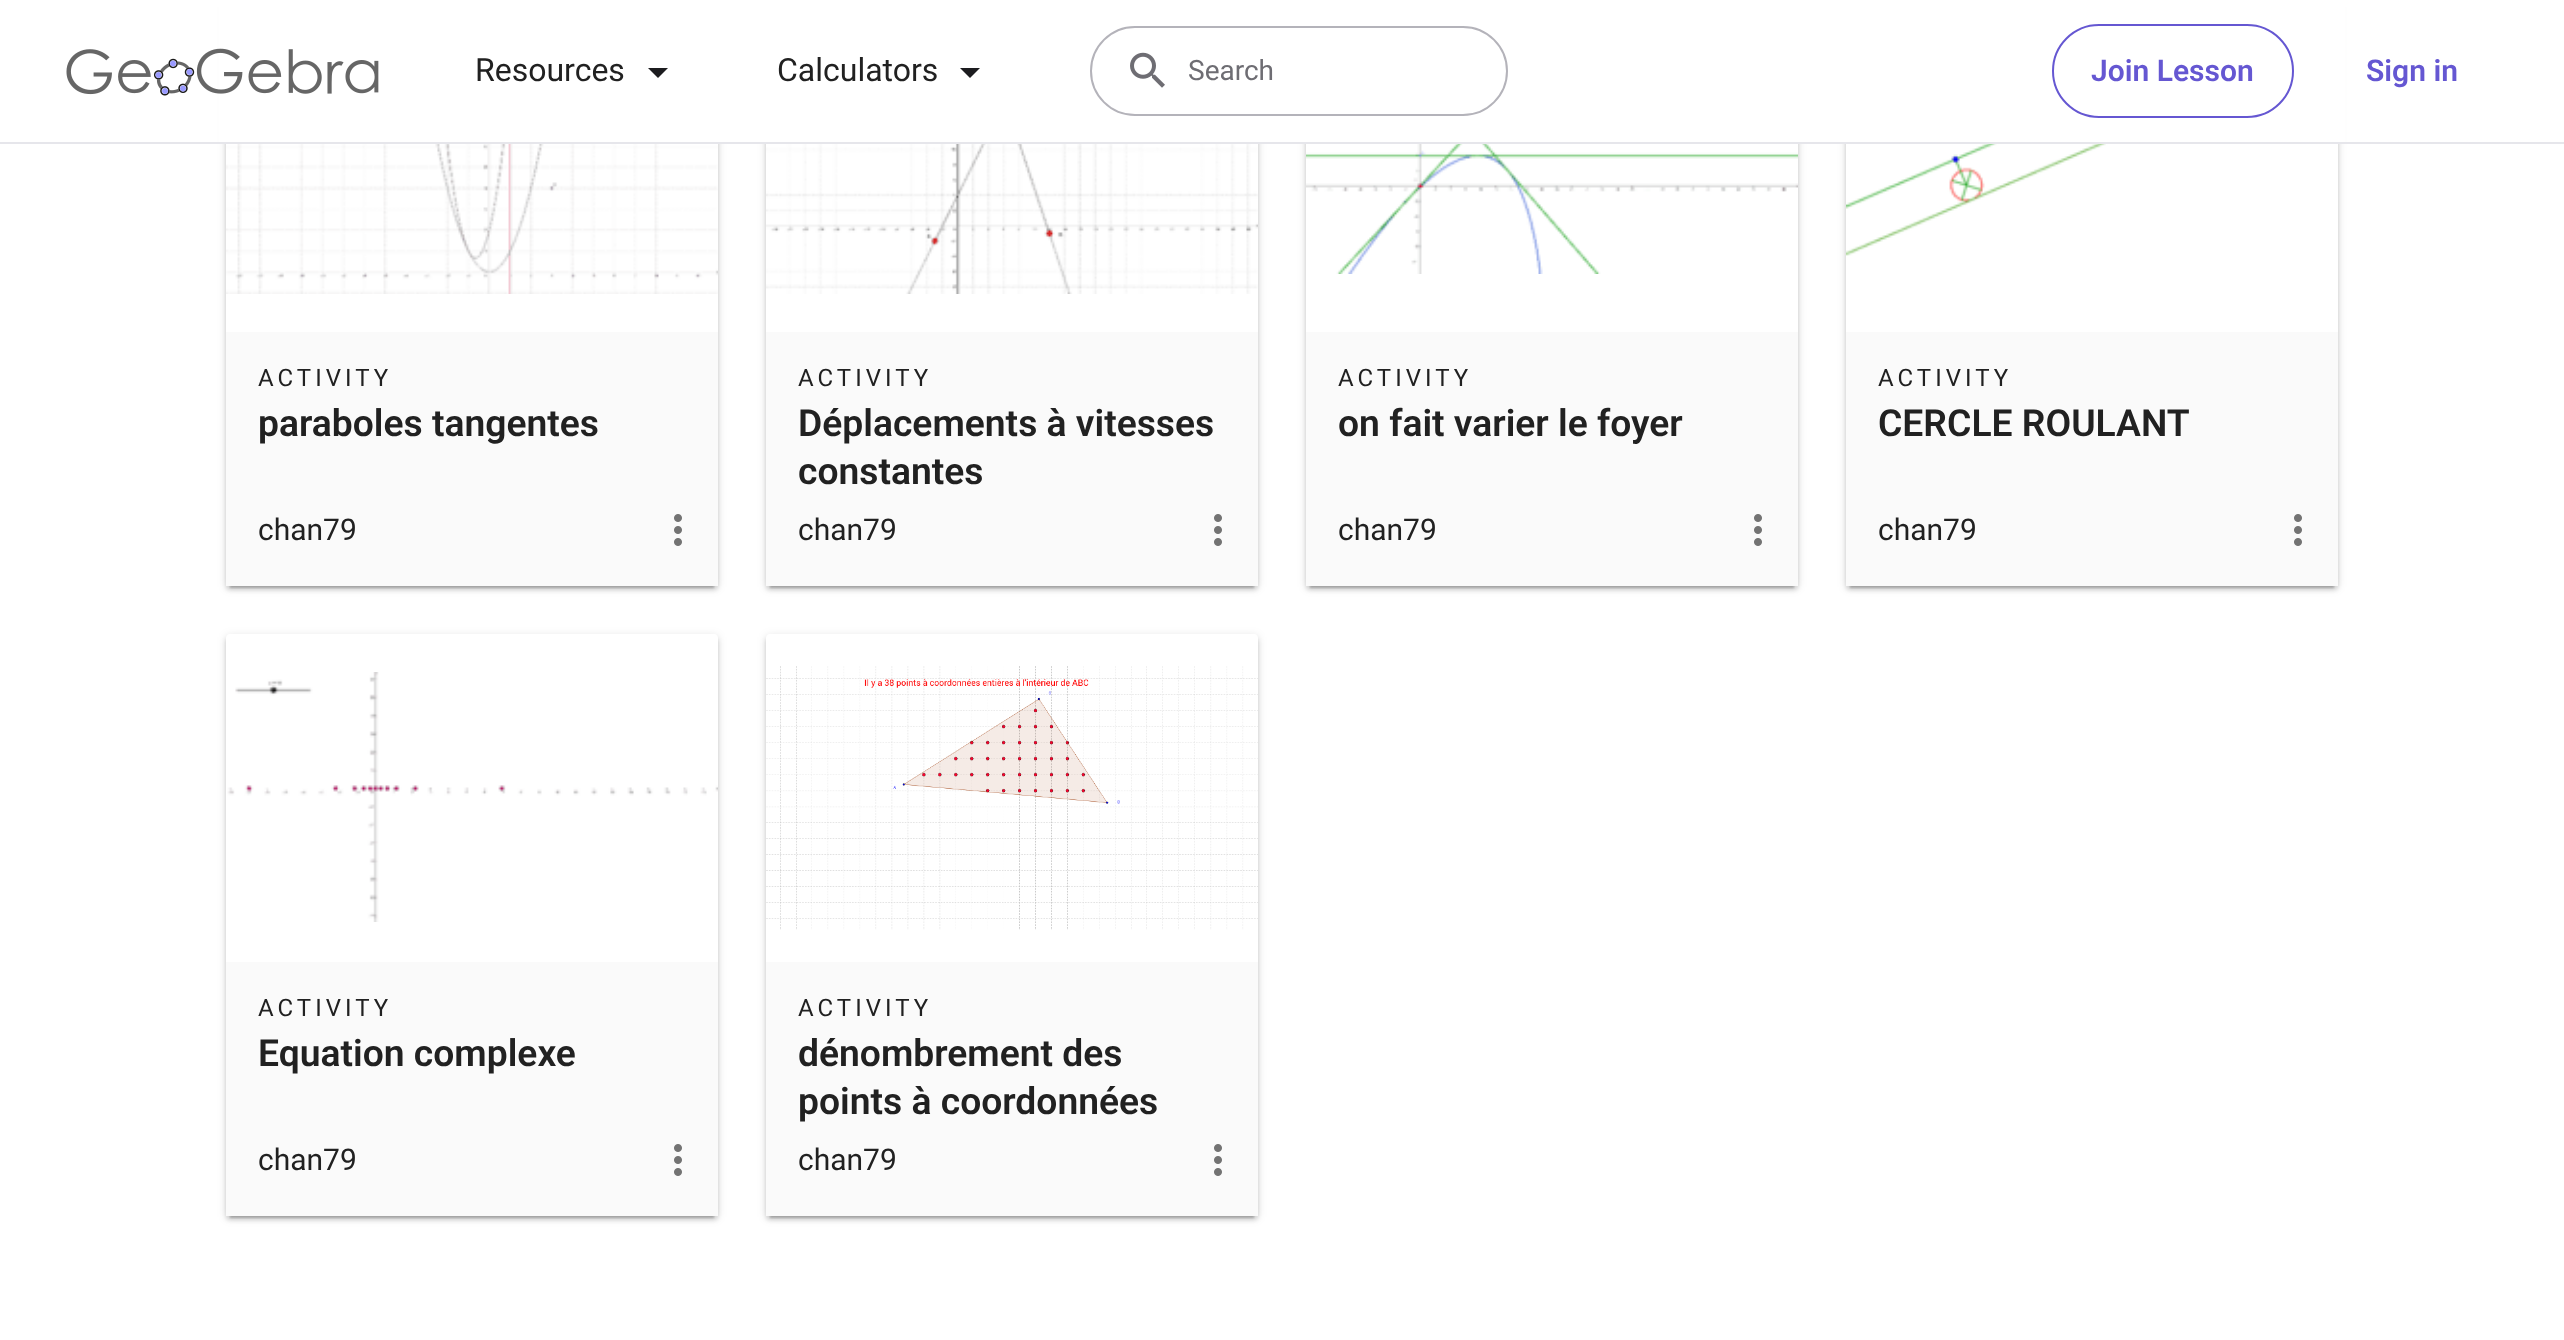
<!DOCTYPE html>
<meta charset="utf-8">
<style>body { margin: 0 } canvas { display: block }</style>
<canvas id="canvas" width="2564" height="1340"></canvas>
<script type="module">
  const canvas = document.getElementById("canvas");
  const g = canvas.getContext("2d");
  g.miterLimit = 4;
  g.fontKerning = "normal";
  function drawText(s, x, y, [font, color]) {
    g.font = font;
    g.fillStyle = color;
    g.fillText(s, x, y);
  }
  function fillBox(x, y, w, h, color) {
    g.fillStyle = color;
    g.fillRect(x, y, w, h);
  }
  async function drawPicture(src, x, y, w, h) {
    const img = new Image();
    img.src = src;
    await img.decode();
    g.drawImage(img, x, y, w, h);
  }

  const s1 = ["32px Roboto", "#212121"];
  const s2 = ["28px Roboto", "#6E6D73"];
  const s3 = ["600 30px Roboto", "#6557D2"];
  const s4 = ["24px Roboto", "#212121"];
  const s5 = ["600 37.25px Roboto", "#212121"];
  const s6 = ["30px Roboto", "#212121"];

  fillBox(0, 0, 2564, 1340, "#FFFFFF");
  g.save();
  g.beginPath();
  g.moveTo(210, 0);
  g.lineTo(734, 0);
  g.lineTo(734, 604);
  g.lineTo(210, 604);
  g.closePath();
  g.moveTo(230, 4);
  g.lineTo(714, 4);
  g.bezierCurveTo(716, 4, 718, 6, 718, 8);
  g.lineTo(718, 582);
  g.bezierCurveTo(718, 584, 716, 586, 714, 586);
  g.lineTo(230, 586);
  g.bezierCurveTo(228, 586, 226, 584, 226, 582);
  g.lineTo(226, 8);
  g.bezierCurveTo(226, 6, 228, 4, 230, 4);
  g.closePath();
  g.clip("evenodd");
  g.fillStyle = "rgba(0, 0, 0, 0.12)";
  g.filter = "blur(5px)";
  g.beginPath();
  g.roundRect(226, 6, 492, 582, 4);
  g.fill();
  g.filter = "none";
  g.restore();
  g.save();
  g.beginPath();
  g.moveTo(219, 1);
  g.lineTo(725, 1);
  g.lineTo(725, 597);
  g.lineTo(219, 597);
  g.closePath();
  g.moveTo(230, 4);
  g.lineTo(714, 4);
  g.bezierCurveTo(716, 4, 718, 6, 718, 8);
  g.lineTo(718, 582);
  g.bezierCurveTo(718, 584, 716, 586, 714, 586);
  g.lineTo(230, 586);
  g.bezierCurveTo(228, 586, 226, 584, 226, 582);
  g.lineTo(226, 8);
  g.bezierCurveTo(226, 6, 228, 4, 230, 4);
  g.closePath();
  g.clip("evenodd");
  g.fillStyle = "rgba(0, 0, 0, 0.14)";
  g.filter = "blur(2px)";
  g.beginPath();
  g.roundRect(226, 8, 492, 582, 4);
  g.fill();
  g.filter = "none";
  g.restore();
  g.save();
  g.beginPath();
  g.rect(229, 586, 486, 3);
  g.clip();
  g.fillStyle = "rgba(0, 0, 0, 0.2)";
  g.filter = "blur(1px)";
  g.beginPath();
  g.rect(230, 14, 484, 574);
  g.fill();
  g.filter = "none";
  g.restore();
  g.save();
  g.beginPath();
  g.moveTo(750, 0);
  g.lineTo(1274, 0);
  g.lineTo(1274, 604);
  g.lineTo(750, 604);
  g.closePath();
  g.moveTo(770, 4);
  g.lineTo(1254, 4);
  g.bezierCurveTo(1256, 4, 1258, 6, 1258, 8);
  g.lineTo(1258, 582);
  g.bezierCurveTo(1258, 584, 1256, 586, 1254, 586);
  g.lineTo(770, 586);
  g.bezierCurveTo(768, 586, 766, 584, 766, 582);
  g.lineTo(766, 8);
  g.bezierCurveTo(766, 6, 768, 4, 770, 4);
  g.closePath();
  g.clip("evenodd");
  g.fillStyle = "rgba(0, 0, 0, 0.12)";
  g.filter = "blur(5px)";
  g.beginPath();
  g.roundRect(766, 6, 492, 582, 4);
  g.fill();
  g.filter = "none";
  g.restore();
  g.save();
  g.beginPath();
  g.moveTo(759, 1);
  g.lineTo(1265, 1);
  g.lineTo(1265, 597);
  g.lineTo(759, 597);
  g.closePath();
  g.moveTo(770, 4);
  g.lineTo(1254, 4);
  g.bezierCurveTo(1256, 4, 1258, 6, 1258, 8);
  g.lineTo(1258, 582);
  g.bezierCurveTo(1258, 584, 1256, 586, 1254, 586);
  g.lineTo(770, 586);
  g.bezierCurveTo(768, 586, 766, 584, 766, 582);
  g.lineTo(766, 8);
  g.bezierCurveTo(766, 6, 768, 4, 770, 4);
  g.closePath();
  g.clip("evenodd");
  g.fillStyle = "rgba(0, 0, 0, 0.14)";
  g.filter = "blur(2px)";
  g.beginPath();
  g.roundRect(766, 8, 492, 582, 4);
  g.fill();
  g.filter = "none";
  g.restore();
  g.save();
  g.beginPath();
  g.rect(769, 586, 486, 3);
  g.clip();
  g.fillStyle = "rgba(0, 0, 0, 0.2)";
  g.filter = "blur(1px)";
  g.beginPath();
  g.rect(770, 14, 484, 574);
  g.fill();
  g.filter = "none";
  g.restore();
  g.save();
  g.beginPath();
  g.moveTo(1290, 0);
  g.lineTo(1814, 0);
  g.lineTo(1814, 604);
  g.lineTo(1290, 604);
  g.closePath();
  g.moveTo(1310, 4);
  g.lineTo(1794, 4);
  g.bezierCurveTo(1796, 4, 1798, 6, 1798, 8);
  g.lineTo(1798, 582);
  g.bezierCurveTo(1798, 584, 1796, 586, 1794, 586);
  g.lineTo(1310, 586);
  g.bezierCurveTo(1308, 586, 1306, 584, 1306, 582);
  g.lineTo(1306, 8);
  g.bezierCurveTo(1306, 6, 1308, 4, 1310, 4);
  g.closePath();
  g.clip("evenodd");
  g.fillStyle = "rgba(0, 0, 0, 0.12)";
  g.filter = "blur(5px)";
  g.beginPath();
  g.roundRect(1306, 6, 492, 582, 4);
  g.fill();
  g.filter = "none";
  g.restore();
  g.save();
  g.beginPath();
  g.moveTo(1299, 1);
  g.lineTo(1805, 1);
  g.lineTo(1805, 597);
  g.lineTo(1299, 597);
  g.closePath();
  g.moveTo(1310, 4);
  g.lineTo(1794, 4);
  g.bezierCurveTo(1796, 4, 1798, 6, 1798, 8);
  g.lineTo(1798, 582);
  g.bezierCurveTo(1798, 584, 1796, 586, 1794, 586);
  g.lineTo(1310, 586);
  g.bezierCurveTo(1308, 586, 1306, 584, 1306, 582);
  g.lineTo(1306, 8);
  g.bezierCurveTo(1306, 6, 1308, 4, 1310, 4);
  g.closePath();
  g.clip("evenodd");
  g.fillStyle = "rgba(0, 0, 0, 0.14)";
  g.filter = "blur(2px)";
  g.beginPath();
  g.roundRect(1306, 8, 492, 582, 4);
  g.fill();
  g.filter = "none";
  g.restore();
  g.save();
  g.beginPath();
  g.rect(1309, 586, 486, 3);
  g.clip();
  g.fillStyle = "rgba(0, 0, 0, 0.2)";
  g.filter = "blur(1px)";
  g.beginPath();
  g.rect(1310, 14, 484, 574);
  g.fill();
  g.filter = "none";
  g.restore();
  g.save();
  g.beginPath();
  g.moveTo(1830, 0);
  g.lineTo(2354, 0);
  g.lineTo(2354, 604);
  g.lineTo(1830, 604);
  g.closePath();
  g.moveTo(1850, 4);
  g.lineTo(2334, 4);
  g.bezierCurveTo(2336, 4, 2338, 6, 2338, 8);
  g.lineTo(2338, 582);
  g.bezierCurveTo(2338, 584, 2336, 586, 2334, 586);
  g.lineTo(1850, 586);
  g.bezierCurveTo(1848, 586, 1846, 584, 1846, 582);
  g.lineTo(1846, 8);
  g.bezierCurveTo(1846, 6, 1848, 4, 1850, 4);
  g.closePath();
  g.clip("evenodd");
  g.fillStyle = "rgba(0, 0, 0, 0.12)";
  g.filter = "blur(5px)";
  g.beginPath();
  g.roundRect(1846, 6, 492, 582, 4);
  g.fill();
  g.filter = "none";
  g.restore();
  g.save();
  g.beginPath();
  g.moveTo(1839, 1);
  g.lineTo(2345, 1);
  g.lineTo(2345, 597);
  g.lineTo(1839, 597);
  g.closePath();
  g.moveTo(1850, 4);
  g.lineTo(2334, 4);
  g.bezierCurveTo(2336, 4, 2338, 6, 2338, 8);
  g.lineTo(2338, 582);
  g.bezierCurveTo(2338, 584, 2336, 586, 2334, 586);
  g.lineTo(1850, 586);
  g.bezierCurveTo(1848, 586, 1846, 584, 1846, 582);
  g.lineTo(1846, 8);
  g.bezierCurveTo(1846, 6, 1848, 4, 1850, 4);
  g.closePath();
  g.clip("evenodd");
  g.fillStyle = "rgba(0, 0, 0, 0.14)";
  g.filter = "blur(2px)";
  g.beginPath();
  g.roundRect(1846, 8, 492, 582, 4);
  g.fill();
  g.filter = "none";
  g.restore();
  g.save();
  g.beginPath();
  g.rect(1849, 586, 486, 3);
  g.clip();
  g.fillStyle = "rgba(0, 0, 0, 0.2)";
  g.filter = "blur(1px)";
  g.beginPath();
  g.rect(1850, 14, 484, 574);
  g.fill();
  g.filter = "none";
  g.restore();
  fillBox(219, 0, 2126, 142, "#FFFFFF");
  fillBox(0, 142, 2564, 2, "#E6E6EB");
  await drawPicture("pic1.png", 66, 48, 313, 48);
  drawText("Resources", 475, 81, s1);
  g.fillStyle = "#1C1C1F";
  g.beginPath();
  g.moveTo(648, 68);
  g.lineTo(658, 78);
  g.lineTo(668, 68);
  g.closePath();
  g.fill();
  drawText("Calculators", 777, 81, s1);
  g.fillStyle = "#1C1C1F";
  g.beginPath();
  g.moveTo(960, 68);
  g.lineTo(970, 78);
  g.lineTo(980, 68);
  g.closePath();
  g.fill();
  g.beginPath();
  g.roundRect(1091, 27, 416, 88, 44);
  g.strokeStyle = "#B4B3BA";
  g.lineWidth = 2;
  g.stroke();
  await drawPicture("pic2.png", 1130, 52, 35, 36);
  drawText("Search", 1188, 80, s2);
  g.beginPath();
  g.roundRect(2053, 25, 240, 92, 46);
  g.strokeStyle = "#6557D2";
  g.stroke();
  drawText("Join Lesson", 2091, 81, s3);
  drawText("Sign in", 2366, 81, s3);
  await drawPicture("pic3.png", 226, 144, 492, 150);
  fillBox(226, 332, 492, 254, "#FAFAFA");
  g.letterSpacing = "4px";
  drawText("ACTIVITY", 258, 386, s4);
  g.letterSpacing = "0px";
  drawText("paraboles tangentes", 258, 436, s5);
  drawText("chan79", 258, 540, s6);
  await drawPicture("pic4.png", 674, 514, 8, 32);
  await drawPicture("pic5.png", 766, 144, 492, 150);
  fillBox(766, 332, 492, 254, "#FAFAFA");
  g.letterSpacing = "4px";
  drawText("ACTIVITY", 798, 386, s4);
  g.letterSpacing = "0px";
  drawText("Déplacements à vitesses", 798, 436, s5);
  drawText("constantes", 798, 484, s5);
  drawText("chan79", 798, 540, s6);
  await drawPicture("pic4.png", 1214, 514, 8, 32);
  await drawPicture("pic6.png", 1306, 144, 492, 130);
  fillBox(1306, 332, 492, 254, "#FAFAFA");
  g.letterSpacing = "4px";
  drawText("ACTIVITY", 1338, 386, s4);
  g.letterSpacing = "0px";
  drawText("on fait varier le foyer", 1338, 436, s5);
  drawText("chan79", 1338, 540, s6);
  await drawPicture("pic4.png", 1754, 514, 8, 32);
  await drawPicture("pic7.png", 1846, 144, 451, 112);
  fillBox(1846, 332, 492, 254, "#FAFAFA");
  g.letterSpacing = "4px";
  drawText("ACTIVITY", 1878, 386, s4);
  g.letterSpacing = "0px";
  drawText("CERCLE ROULANT", 1878, 436, s5);
  drawText("chan79", 1878, 540, s6);
  await drawPicture("pic4.png", 2294, 514, 8, 32);
  g.save();
  g.beginPath();
  g.moveTo(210, 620);
  g.lineTo(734, 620);
  g.lineTo(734, 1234);
  g.lineTo(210, 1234);
  g.closePath();
  g.moveTo(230, 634);
  g.lineTo(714, 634);
  g.bezierCurveTo(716, 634, 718, 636, 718, 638);
  g.lineTo(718, 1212);
  g.bezierCurveTo(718, 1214, 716, 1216, 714, 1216);
  g.lineTo(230, 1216);
  g.bezierCurveTo(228, 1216, 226, 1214, 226, 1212);
  g.lineTo(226, 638);
  g.bezierCurveTo(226, 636, 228, 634, 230, 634);
  g.closePath();
  g.clip("evenodd");
  g.fillStyle = "rgba(0, 0, 0, 0.12)";
  g.filter = "blur(5px)";
  g.beginPath();
  g.roundRect(226, 636, 492, 582, 4);
  g.fill();
  g.filter = "none";
  g.restore();
  g.save();
  g.beginPath();
  g.moveTo(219, 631);
  g.lineTo(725, 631);
  g.lineTo(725, 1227);
  g.lineTo(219, 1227);
  g.closePath();
  g.moveTo(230, 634);
  g.lineTo(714, 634);
  g.bezierCurveTo(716, 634, 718, 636, 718, 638);
  g.lineTo(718, 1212);
  g.bezierCurveTo(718, 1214, 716, 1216, 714, 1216);
  g.lineTo(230, 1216);
  g.bezierCurveTo(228, 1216, 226, 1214, 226, 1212);
  g.lineTo(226, 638);
  g.bezierCurveTo(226, 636, 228, 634, 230, 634);
  g.closePath();
  g.clip("evenodd");
  g.fillStyle = "rgba(0, 0, 0, 0.14)";
  g.filter = "blur(2px)";
  g.beginPath();
  g.roundRect(226, 638, 492, 582, 4);
  g.fill();
  g.filter = "none";
  g.restore();
  g.save();
  g.beginPath();
  g.rect(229, 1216, 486, 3);
  g.clip();
  g.fillStyle = "rgba(0, 0, 0, 0.2)";
  g.filter = "blur(1px)";
  g.beginPath();
  g.rect(230, 644, 484, 574);
  g.fill();
  g.filter = "none";
  g.restore();
  await drawPicture("pic8.png", 227, 672, 491, 250);
  fillBox(226, 962, 492, 254, "#FAFAFA");
  g.letterSpacing = "4px";
  drawText("ACTIVITY", 258, 1016, s4);
  g.letterSpacing = "0px";
  drawText("Equation complexe", 258, 1066, s5);
  drawText("chan79", 258, 1170, s6);
  await drawPicture("pic4.png", 674, 1144, 8, 32);
  g.save();
  g.beginPath();
  g.moveTo(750, 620);
  g.lineTo(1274, 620);
  g.lineTo(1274, 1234);
  g.lineTo(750, 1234);
  g.closePath();
  g.moveTo(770, 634);
  g.lineTo(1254, 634);
  g.bezierCurveTo(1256, 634, 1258, 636, 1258, 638);
  g.lineTo(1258, 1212);
  g.bezierCurveTo(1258, 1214, 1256, 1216, 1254, 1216);
  g.lineTo(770, 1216);
  g.bezierCurveTo(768, 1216, 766, 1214, 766, 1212);
  g.lineTo(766, 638);
  g.bezierCurveTo(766, 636, 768, 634, 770, 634);
  g.closePath();
  g.clip("evenodd");
  g.fillStyle = "rgba(0, 0, 0, 0.12)";
  g.filter = "blur(5px)";
  g.beginPath();
  g.roundRect(766, 636, 492, 582, 4);
  g.fill();
  g.filter = "none";
  g.restore();
  g.save();
  g.beginPath();
  g.moveTo(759, 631);
  g.lineTo(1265, 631);
  g.lineTo(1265, 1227);
  g.lineTo(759, 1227);
  g.closePath();
  g.moveTo(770, 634);
  g.lineTo(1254, 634);
  g.bezierCurveTo(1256, 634, 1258, 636, 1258, 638);
  g.lineTo(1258, 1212);
  g.bezierCurveTo(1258, 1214, 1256, 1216, 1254, 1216);
  g.lineTo(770, 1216);
  g.bezierCurveTo(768, 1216, 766, 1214, 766, 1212);
  g.lineTo(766, 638);
  g.bezierCurveTo(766, 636, 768, 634, 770, 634);
  g.closePath();
  g.clip("evenodd");
  g.fillStyle = "rgba(0, 0, 0, 0.14)";
  g.filter = "blur(2px)";
  g.beginPath();
  g.roundRect(766, 638, 492, 582, 4);
  g.fill();
  g.filter = "none";
  g.restore();
  g.save();
  g.beginPath();
  g.rect(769, 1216, 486, 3);
  g.clip();
  g.fillStyle = "rgba(0, 0, 0, 0.2)";
  g.filter = "blur(1px)";
  g.beginPath();
  g.rect(770, 644, 484, 574);
  g.fill();
  g.filter = "none";
  g.restore();
  await drawPicture("pic9.png", 766, 666, 492, 264);
  fillBox(766, 962, 492, 254, "#FAFAFA");
  g.letterSpacing = "4px";
  drawText("ACTIVITY", 798, 1016, s4);
  g.letterSpacing = "0px";
  drawText("dénombrement des", 798, 1066, s5);
  drawText("points à coordonnées", 798, 1114, s5);
  drawText("chan79", 798, 1170, s6);
  await drawPicture("pic4.png", 1214, 1144, 8, 32);
</script>
